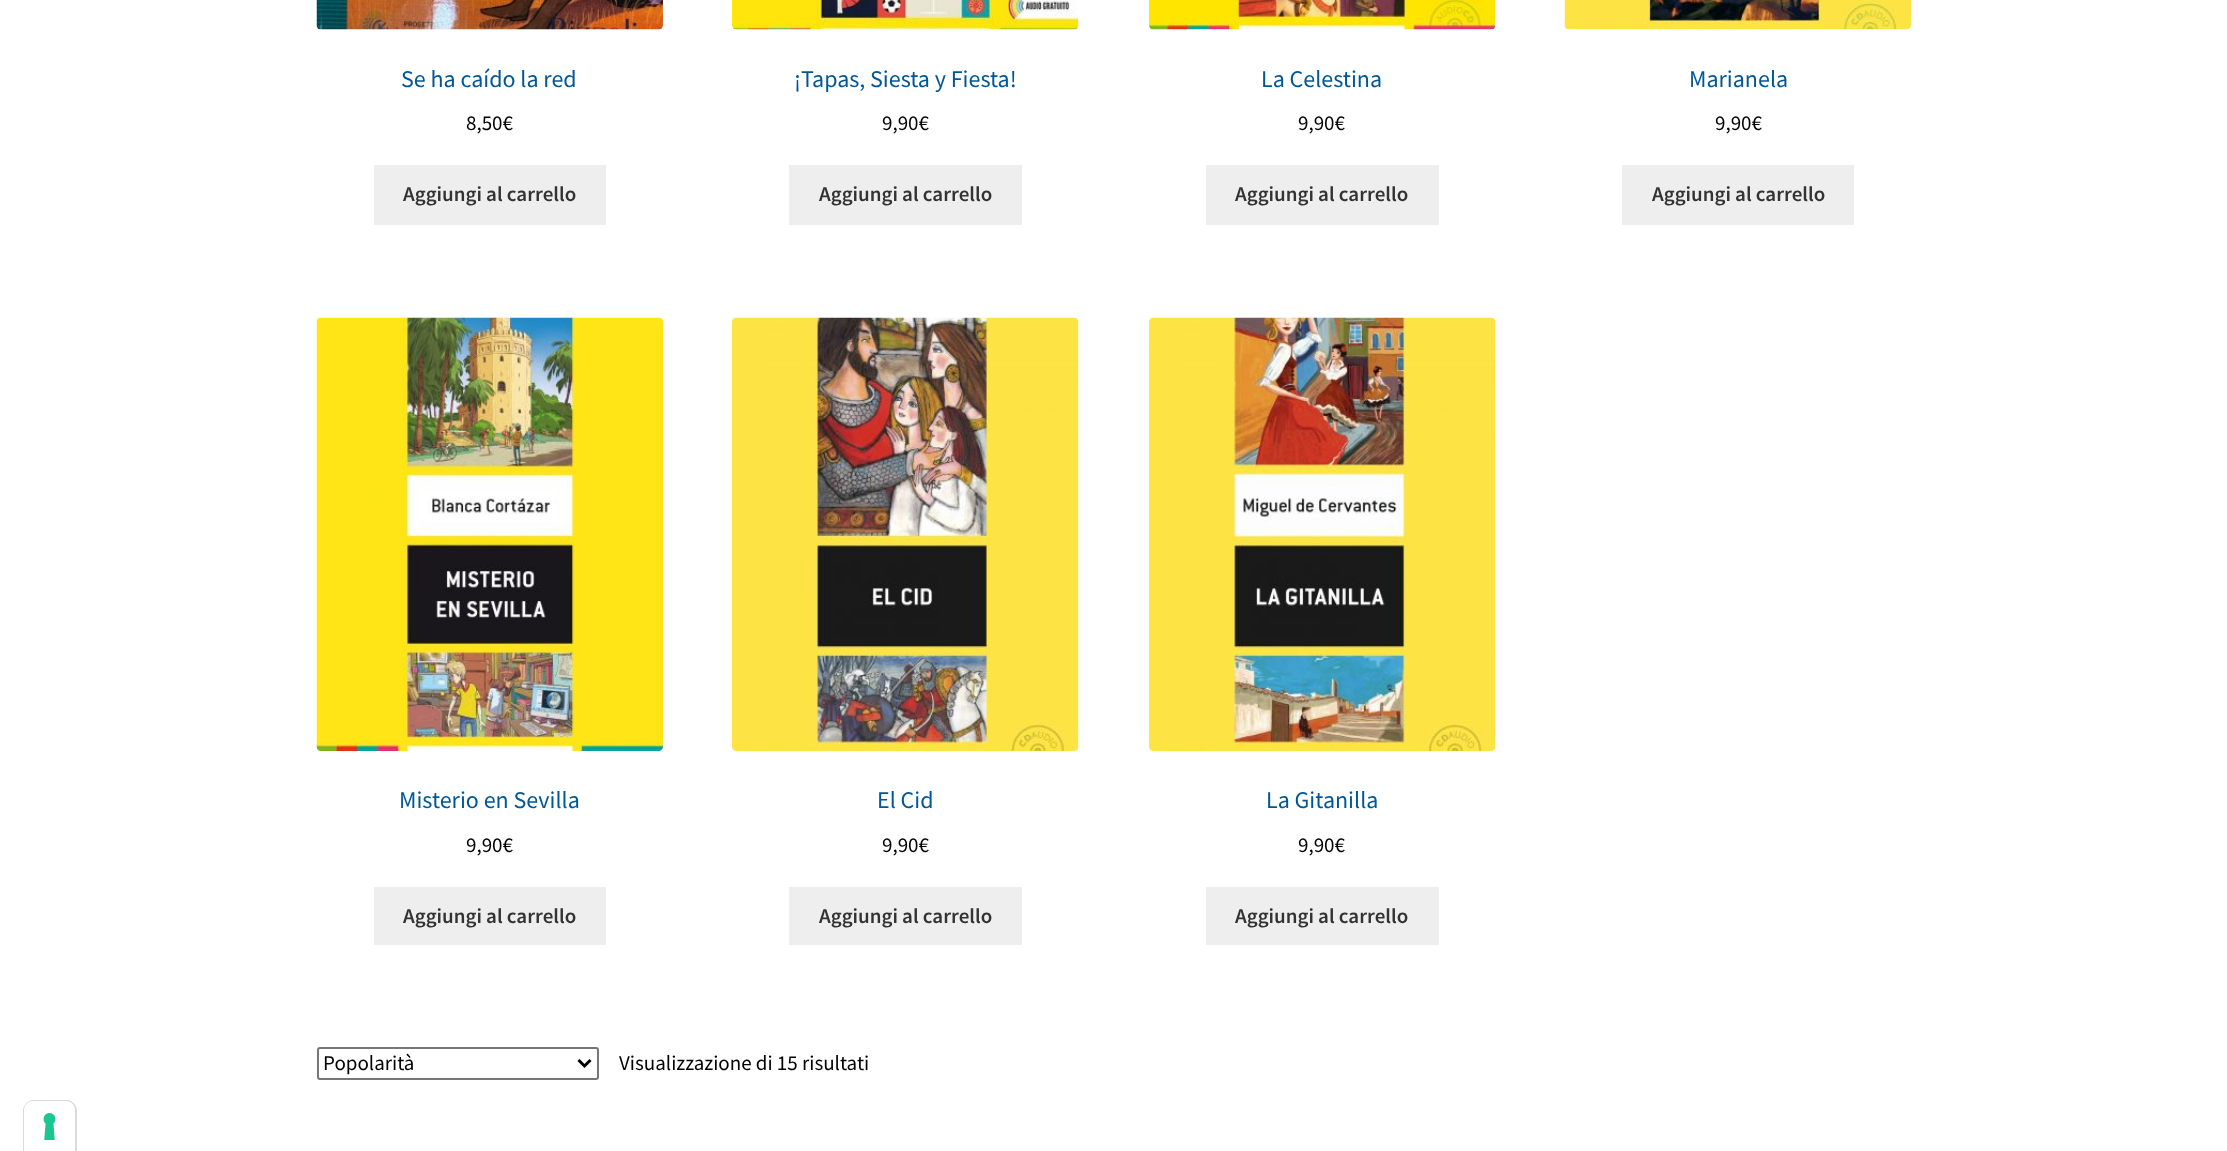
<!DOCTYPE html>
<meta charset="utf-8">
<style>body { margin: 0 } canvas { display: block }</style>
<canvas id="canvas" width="2227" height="1151"></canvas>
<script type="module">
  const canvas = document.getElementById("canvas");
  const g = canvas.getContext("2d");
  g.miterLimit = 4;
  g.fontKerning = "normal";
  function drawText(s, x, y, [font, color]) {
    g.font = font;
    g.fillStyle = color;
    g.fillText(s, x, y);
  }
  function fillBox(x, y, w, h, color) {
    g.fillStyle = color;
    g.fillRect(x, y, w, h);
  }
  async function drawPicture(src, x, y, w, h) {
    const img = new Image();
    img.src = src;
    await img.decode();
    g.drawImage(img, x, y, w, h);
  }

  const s1 = ["24px Source Sans Pro", "#005797"];
  const s2 = ["21px Source Sans Pro", "#000000"];
  const s3 = ["600 21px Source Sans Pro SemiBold", "#333333"];

  fillBox(0, 0, 2227, 1151, "#FFFFFF");
  await drawPicture("pic1.png", 316, 0, 347, 30);
  drawText("Se ha caído la red", 401, 87, s1);
  drawText("8,50€", 466, 130, s2);
  fillBox(374, 165, 232, 60, "#EEEEEE");
  drawText("Aggiungi al carrello", 403, 201, s3);
  await drawPicture("pic2.png", 732, 0, 347, 30);
  drawText("¡Tapas, Siesta y Fiesta!", 794, 87, s1);
  drawText("9,90€", 882, 130, s2);
  fillBox(789, 165, 233, 60, "#EEEEEE");
  drawText("Aggiungi al carrello", 819, 201, s3);
  await drawPicture("pic3.png", 1149, 0, 347, 30);
  drawText("La Celestina", 1261, 87, s1);
  drawText("9,90€", 1298, 130, s2);
  fillBox(1206, 165, 233, 60, "#EEEEEE");
  drawText("Aggiungi al carrello", 1235, 201, s3);
  await drawPicture("pic4.png", 1564, 0, 347, 30);
  drawText("Marianela", 1689, 87, s1);
  drawText("9,90€", 1715, 130, s2);
  fillBox(1622, 165, 232, 60, "#EEEEEE");
  drawText("Aggiungi al carrello", 1652, 201, s3);
  await drawPicture("pic5.png", 316, 317, 347, 434);
  drawText("Misterio en Sevilla", 399, 808, s1);
  drawText("9,90€", 466, 852, s2);
  fillBox(374, 887, 232, 58, "#EEEEEE");
  drawText("Aggiungi al carrello", 403, 923, s3);
  await drawPicture("pic6.png", 732, 317, 347, 434);
  drawText("El Cid", 877, 808, s1);
  drawText("9,90€", 882, 852, s2);
  fillBox(789, 887, 233, 58, "#EEEEEE");
  drawText("Aggiungi al carrello", 819, 923, s3);
  await drawPicture("pic7.png", 1149, 317, 347, 434);
  drawText("La Gitanilla", 1266, 808, s1);
  drawText("9,90€", 1298, 852, s2);
  fillBox(1206, 887, 233, 58, "#EEEEEE");
  drawText("Aggiungi al carrello", 1235, 923, s3);
  g.beginPath();
  g.roundRect(318, 1048, 280, 31, 2);
  g.strokeStyle = "#767676";
  g.lineWidth = 2;
  g.stroke();
  g.beginPath();
  g.moveTo(578.5, 1060);
  g.lineTo(584.5, 1066);
  g.lineTo(590.5, 1060);
  g.strokeStyle = "#000000";
  g.lineWidth = 3;
  g.stroke();
  drawText("Popolarità", 323, 1070, s2);
  drawText("Visualizzazione di 15 risultati", 619, 1070, s2);
  g.beginPath();
  g.moveTo(34, 1101);
  g.lineTo(66, 1101);
  g.bezierCurveTo(71.5, 1101, 76, 1105.5, 76, 1111);
  g.lineTo(76, 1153);
  g.lineTo(24, 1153);
  g.lineTo(24, 1111);
  g.bezierCurveTo(24, 1105.5, 28.5, 1101, 34, 1101);
  g.closePath();
  g.strokeStyle = "#D9D9D9";
  g.lineWidth = 2;
  g.stroke();
  g.fillStyle = "#FFFFFF";
  g.beginPath();
  g.moveTo(33, 1101);
  g.lineTo(66, 1101);
  g.bezierCurveTo(71, 1101, 75, 1105, 75, 1110);
  g.lineTo(75, 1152);
  g.lineTo(24, 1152);
  g.lineTo(24, 1110);
  g.bezierCurveTo(24, 1105, 28, 1101, 33, 1101);
  g.closePath();
  g.fill();
  await drawPicture("pic8.png", 43, 1113, 13, 27);
</script>
